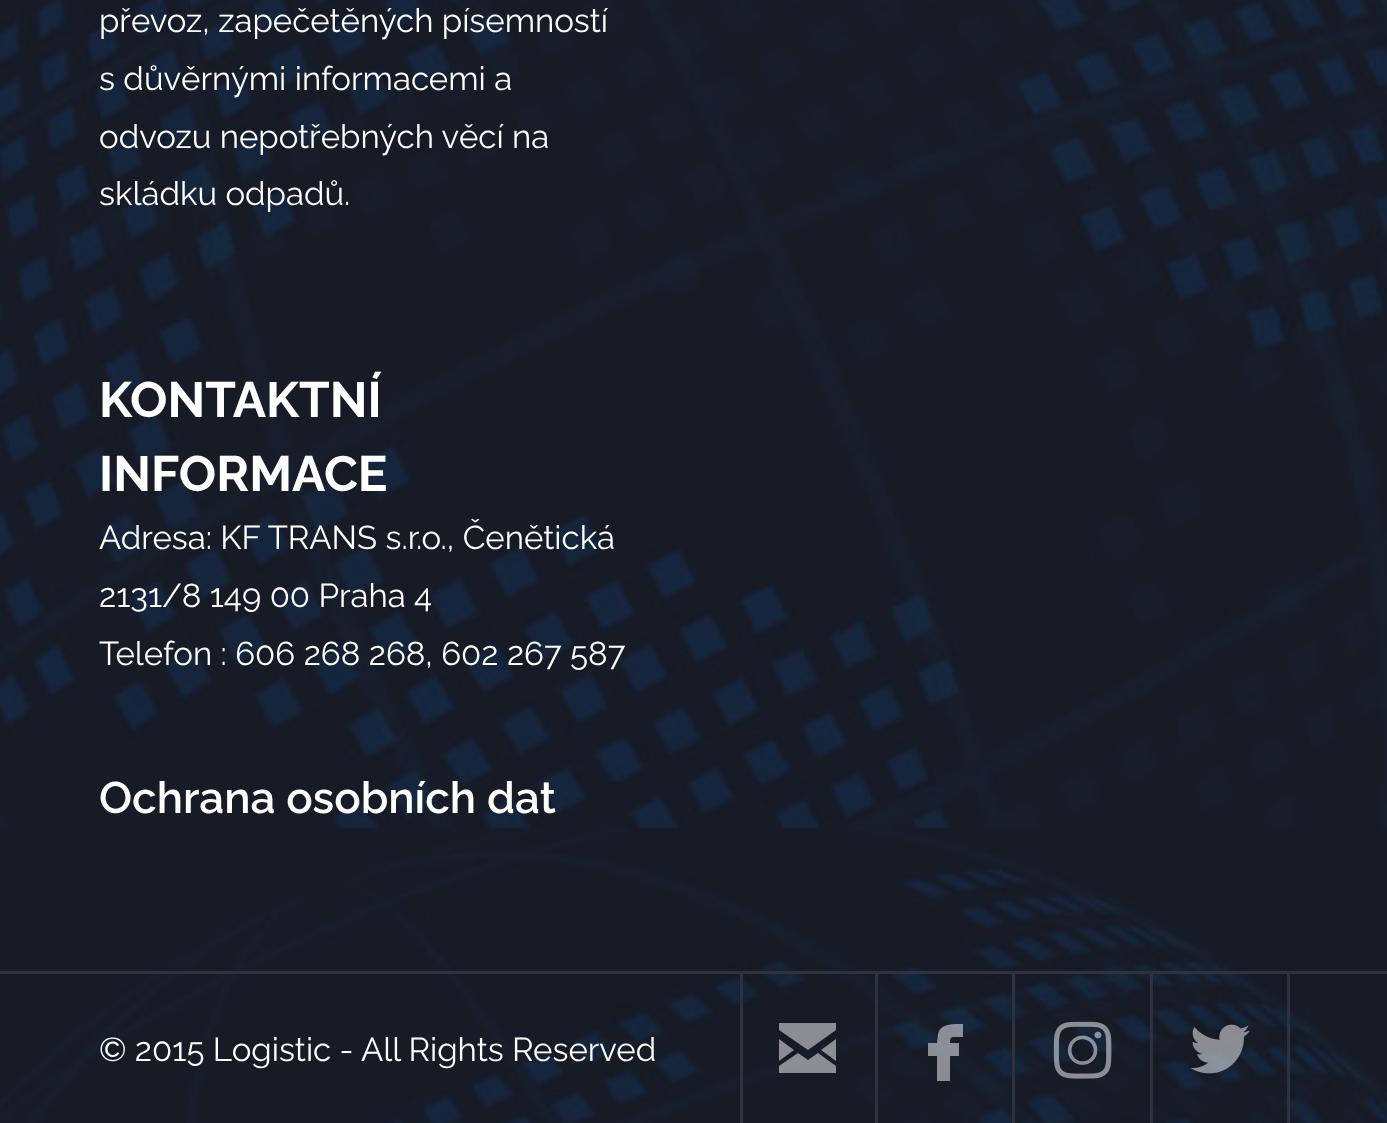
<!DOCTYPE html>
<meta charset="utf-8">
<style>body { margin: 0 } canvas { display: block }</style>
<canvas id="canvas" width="1387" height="1123"></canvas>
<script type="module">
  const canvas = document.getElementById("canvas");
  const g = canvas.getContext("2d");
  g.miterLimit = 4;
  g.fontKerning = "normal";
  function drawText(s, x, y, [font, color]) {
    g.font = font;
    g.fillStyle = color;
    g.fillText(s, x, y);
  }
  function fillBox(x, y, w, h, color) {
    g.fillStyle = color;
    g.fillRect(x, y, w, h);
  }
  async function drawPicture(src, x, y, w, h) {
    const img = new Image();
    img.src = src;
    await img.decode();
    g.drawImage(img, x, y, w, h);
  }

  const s1 = ["33px Raleway", "#FFFFFF"];
  const s2 = ["bold 49.5px Raleway", "#FFFFFF"];
  const s3 = ["600 44px Raleway", "#FFFFFF"];

  fillBox(0, 0, 1387, 1123, "#FFFFFF");
  await drawPicture("pic1.png", 0, 0, 1387, 1123);
  drawText("převoz, zapečetěných písemností", 99, 32, s1);
  drawText("s důvěrnými informacemi a", 99, 90, s1);
  drawText("odvozu nepotřebných věcí na", 99, 148, s1);
  drawText("skládku odpadů.", 99, 205, s1);
  drawText("KONTAKTNÍ", 99, 417, s2);
  drawText("INFORMACE", 99, 491, s2);
  drawText("Adresa: KF TRANS s.r.o., Čenětická", 99, 549, s1);
  drawText("2131/8 149 00 Praha 4", 99, 607, s1);
  drawText("Telefon : 606 268 268, 602 267 587", 99, 665, s1);
  drawText("Ochrana osobních dat", 99, 813, s3);
  fillBox(0, 971, 1387, 3, "#2F323C");
  drawText("© 2015 Logistic - All Rights Reserved", 99, 1061, s1);
  fillBox(875, 974, 3, 149, "#2F323C");
  fillBox(740, 974, 3, 149, "#2F323C");
  g.fillStyle = "rgba(255, 255, 255, 0.5)";
  g.beginPath();
  g.moveTo(794, 1050);
  g.lineTo(779, 1061);
  g.lineTo(779, 1039);
  g.closePath();
  g.moveTo(836, 1030);
  g.lineTo(808, 1050);
  g.lineTo(779, 1030);
  g.lineTo(779, 1023);
  g.lineTo(836, 1023);
  g.closePath();
  g.moveTo(836, 1039);
  g.lineTo(836, 1061);
  g.lineTo(821, 1050);
  g.closePath();
  g.moveTo(818, 1053);
  g.lineTo(836, 1066);
  g.lineTo(836, 1073);
  g.lineTo(779, 1073);
  g.lineTo(779, 1066);
  g.lineTo(798, 1053);
  g.lineTo(808, 1060);
  g.closePath();
  g.fill();
  fillBox(1012, 974, 3, 149, "#2F323C");
  g.fillStyle = "rgba(255, 255, 255, 0.5)";
  g.beginPath();
  g.moveTo(953, 1037);
  g.bezierCurveTo(950, 1037, 950, 1041, 950, 1043);
  g.lineTo(959, 1043);
  g.lineTo(959, 1056);
  g.lineTo(950, 1056);
  g.lineTo(950, 1081);
  g.lineTo(937, 1081);
  g.lineTo(937, 1056);
  g.lineTo(928, 1056);
  g.lineTo(928, 1043);
  g.lineTo(937, 1043);
  g.lineTo(938, 1034);
  g.bezierCurveTo(940, 1023, 954, 1024, 963, 1024);
  g.lineTo(963, 1037);
  g.closePath();
  g.fill();
  fillBox(1150, 974, 3, 149, "#2F323C");
  await drawPicture("pic2.png", 1053, 1021, 59, 58);
  fillBox(1287, 974, 3, 149, "#2F323C");
  await drawPicture("pic3.png", 1190, 1024, 60, 50);
</script>
